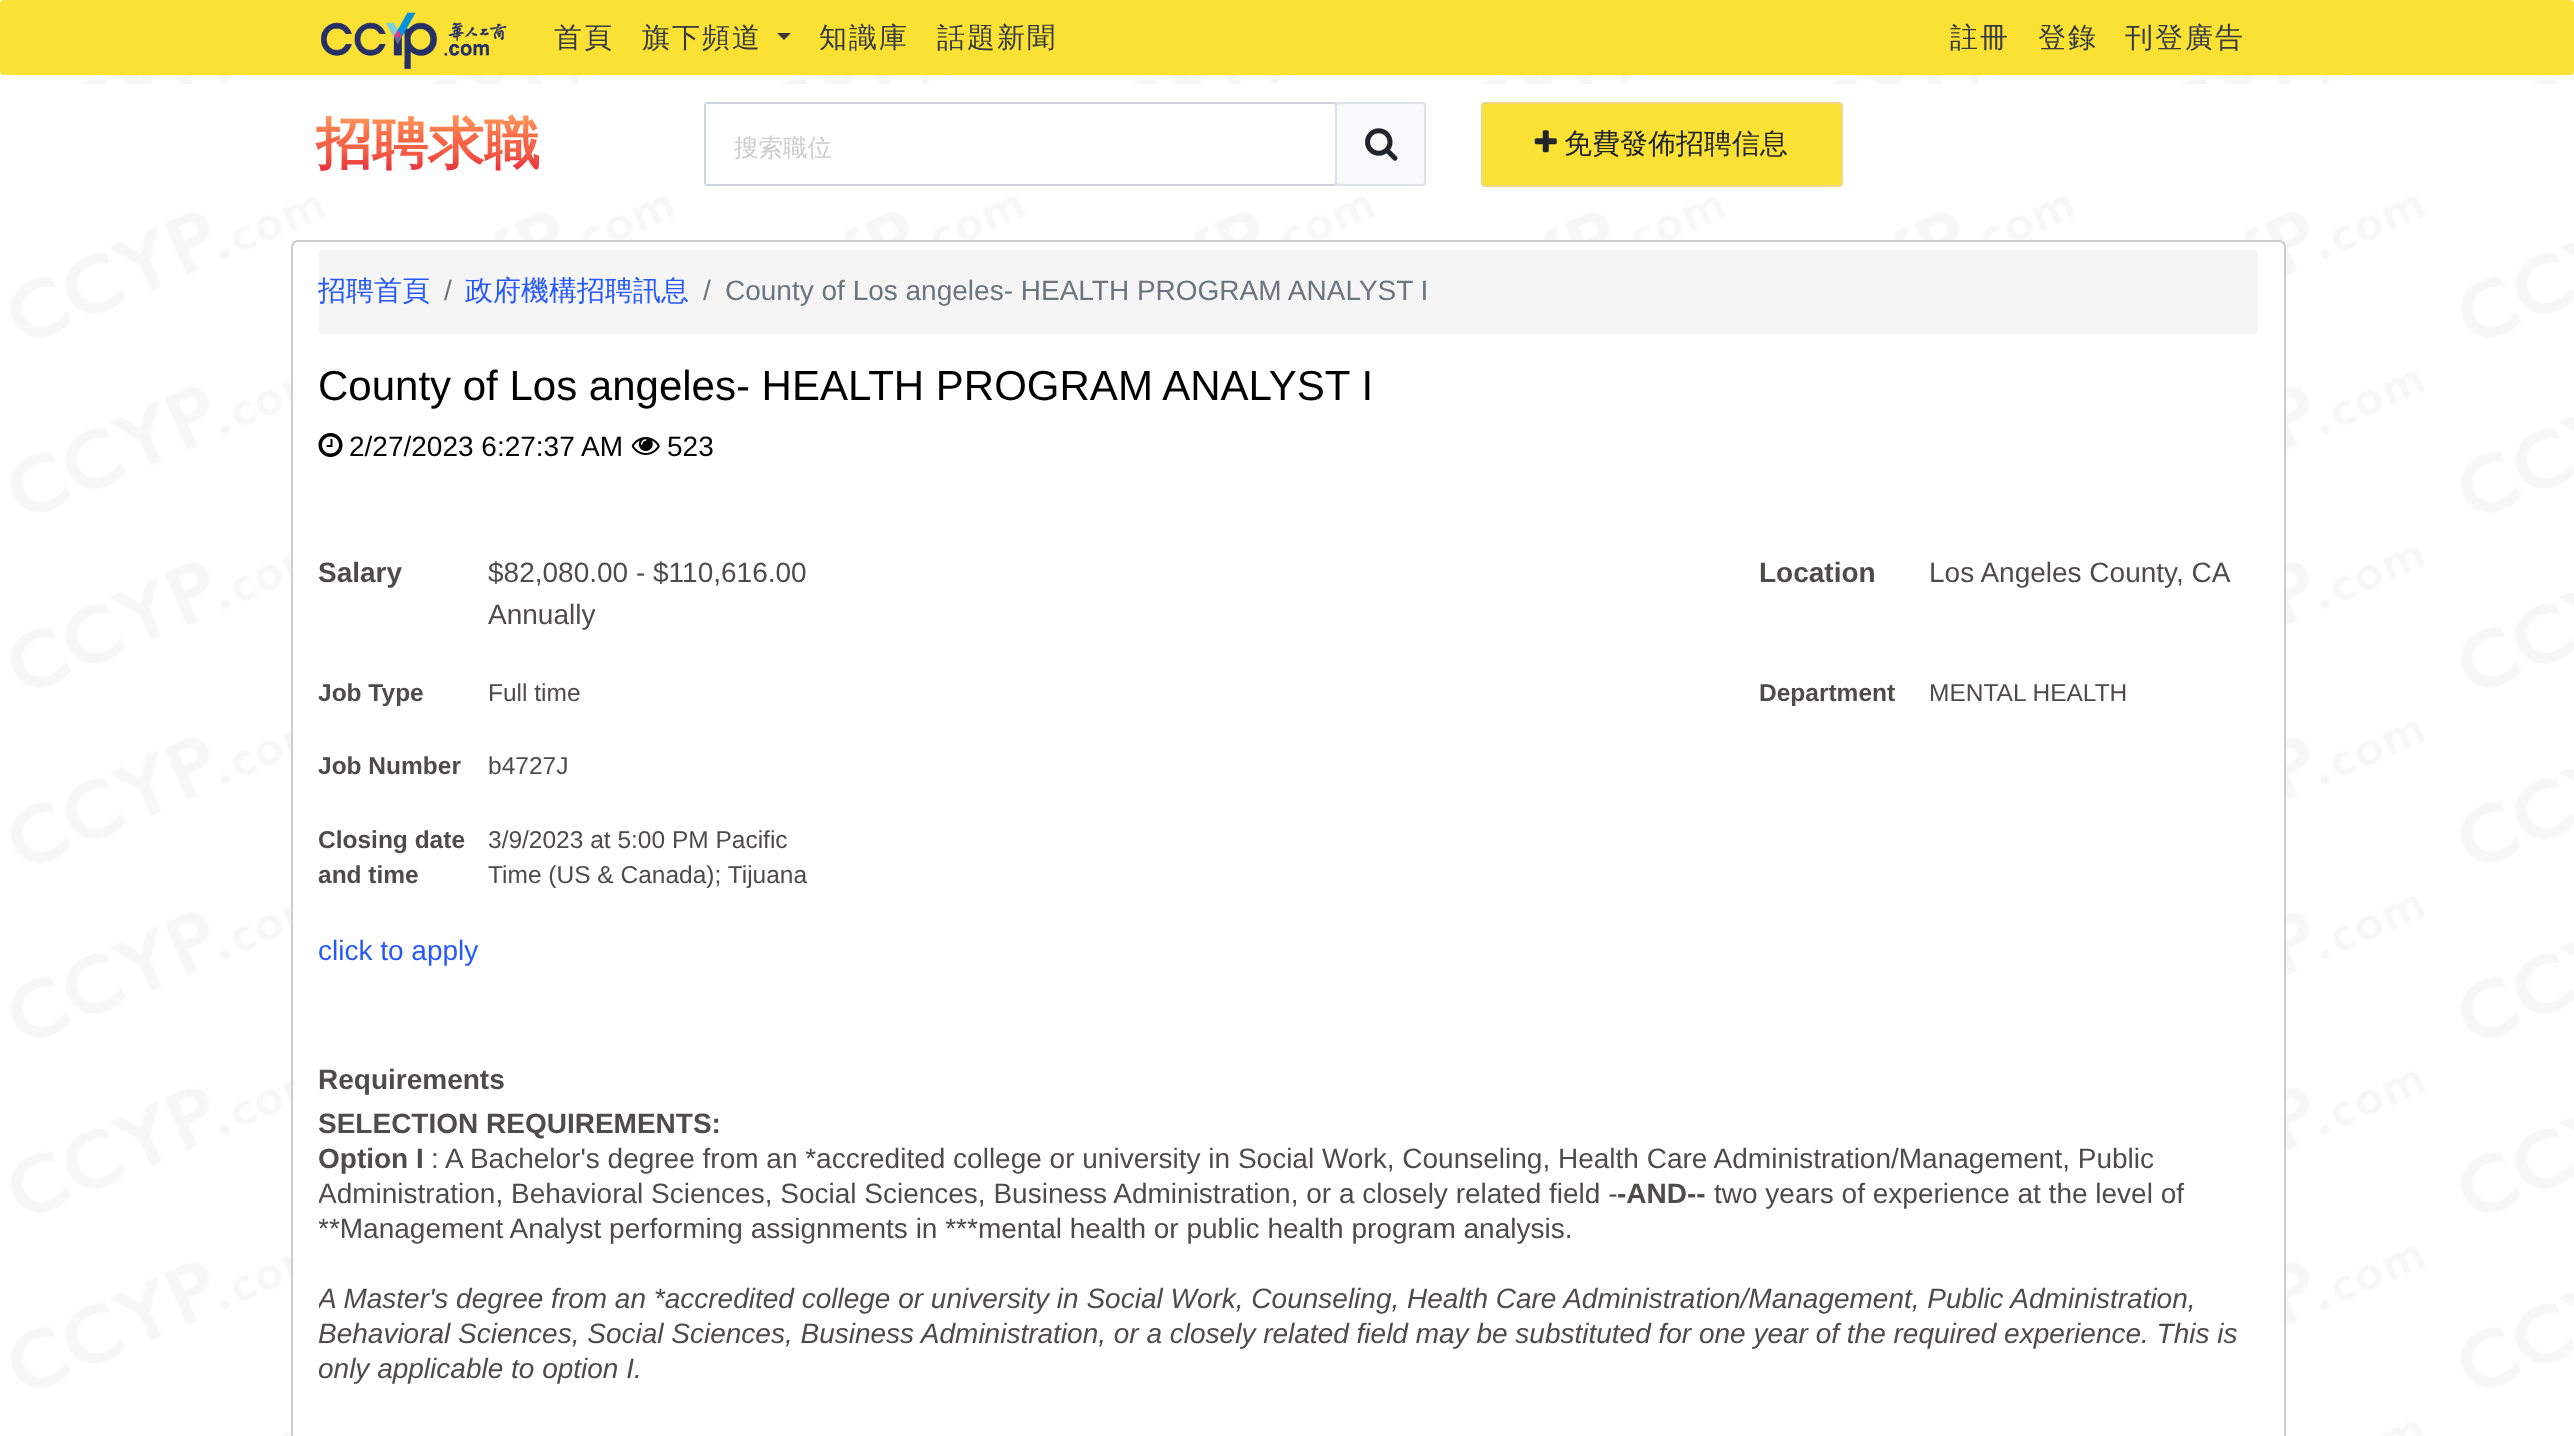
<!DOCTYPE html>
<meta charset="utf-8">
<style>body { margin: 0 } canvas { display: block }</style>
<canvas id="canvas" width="2574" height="1436"></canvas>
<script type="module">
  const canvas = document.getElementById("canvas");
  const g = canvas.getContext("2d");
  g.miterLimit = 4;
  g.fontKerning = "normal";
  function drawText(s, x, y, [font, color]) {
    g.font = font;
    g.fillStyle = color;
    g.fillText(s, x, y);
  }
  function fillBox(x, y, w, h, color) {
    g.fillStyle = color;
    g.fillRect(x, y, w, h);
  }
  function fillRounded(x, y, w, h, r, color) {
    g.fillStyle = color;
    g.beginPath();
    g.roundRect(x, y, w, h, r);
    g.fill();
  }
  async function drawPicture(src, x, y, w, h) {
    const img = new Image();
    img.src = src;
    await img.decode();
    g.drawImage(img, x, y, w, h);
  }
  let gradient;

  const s1 = ["500 28px WenQuanYi Zen Hei", "#343A40"];
  const s2 = ["500 24.5px WenQuanYi Zen Hei", "#CCCCCC"];
  const s3 = ["500 28px WenQuanYi Zen Hei", "#212529"];
  const s4 = ["500 28px WenQuanYi Zen Hei", "#2659FB"];
  const s5 = ["28px Liberation Sans", "#6C757D"];
  const s6 = ["42px Liberation Sans", "#000000"];
  const s7 = ["28px Liberation Sans", "#000000"];
  const s8 = ["bold 28px Liberation Sans", "#4E4C4A"];
  const s9 = ["28px Liberation Sans", "#4E4C4A"];
  const s10 = ["bold 24.5px Liberation Sans", "#4E4C4A"];
  const s11 = ["24.5px Liberation Sans", "#4E4C4A"];
  const s12 = ["28px Liberation Sans", "#2659FB"];
  const s13 = ["italic 28px Liberation Sans", "#4E4C4A"];

  fillBox(0, 0, 2574, 1436, "#FFFFFF");
  await drawPicture("pic1.png", 11, 71, 2563, 1365);
  fillRounded(0, 0, 2574, 75, 4, "#FBE134");
  await drawPicture("pic2.png", 321, 12, 186, 57);
  g.letterSpacing = "2px";
  drawText("首頁", 554, 47, s1);
  drawText("旗下頻道", 642, 47, s1);
  g.beginPath();
  g.moveTo(777, 33);
  g.lineTo(791, 33);
  g.lineTo(784, 40);
  g.closePath();
  g.fill();
  drawText("知識庫", 819, 47, s1);
  drawText("話題新聞", 937, 47, s1);
  drawText("註冊", 1950, 47, s1);
  drawText("登錄", 2038, 47, s1);
  drawText("刊登廣告", 2125, 47, s1);
  fillBox(11, 84, 2563, 79, "#FFFFFF");
  g.letterSpacing = "0px";
  g.font = "bold 56px WenQuanYi Zen Hei";
  gradient = g.createLinearGradient(484, 111, 484, 178);
  gradient.addColorStop(0, "#FFA05C");
  gradient.addColorStop(0.46, "#F56245");
  gradient.addColorStop(0.58, "#F56245");
  gradient.addColorStop(0.9, "#E92F3D");
  gradient.addColorStop(1, "#E92F3D");
  g.fillStyle = gradient;
  g.fillText("招聘求職", 316, 163);
  g.beginPath();
  g.roundRect(705, 103, 631, 82, 3);
  g.strokeStyle = "#CED4DA";
  g.lineWidth = 2;
  g.stroke();
  drawText("搜索職位", 734, 156, s2);
  g.fillStyle = "#F8F9FA";
  g.beginPath();
  g.roundRect(1336, 103, 89, 82, 3);
  g.fill();
  g.strokeStyle = "#DEE2E6";
  g.stroke();
  await drawPicture("pic3.png", 1365, 128, 33, 33);
  g.fillStyle = "#FBE134";
  g.beginPath();
  g.roundRect(1482, 103, 360, 83, 3);
  g.fill();
  g.strokeStyle = "#EFD584";
  g.stroke();
  await drawPicture("pic4.png", 1534, 130, 23, 23);
  drawText("免費發佈招聘信息", 1564, 153, s3);
  g.fillStyle = "#FFFFFF";
  g.beginPath();
  g.roundRect(292, 241, 1993, 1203, 6);
  g.fill();
  g.strokeStyle = "#CCCCCC";
  g.stroke();
  fillRounded(319, 250, 1939, 84, 4, "#F5F5F5");
  drawText("招聘首頁", 318, 300, s4);
  drawText("/", 444, 300, s5);
  drawText("政府機構招聘訊息", 465, 300, s4);
  drawText("/", 703, 300, s5);
  drawText("County of Los angeles- HEALTH PROGRAM ANALYST I", 725, 300, s5);
  drawText("County of Los angeles- HEALTH PROGRAM ANALYST I", 318, 400, s6);
  await drawPicture("pic5.png", 318, 433, 25, 24);
  drawText("2/27/2023 6:27:37 AM", 349, 456, s7);
  await drawPicture("pic6.png", 631, 437, 29, 18);
  drawText("523", 667, 456, s7);
  drawText("Salary", 318, 582, s8);
  drawText("$82,080.00 - $110,616.00", 488, 582, s9);
  drawText("Annually", 488, 624, s9);
  drawText("Location", 1759, 582, s8);
  drawText("Los Angeles County, CA", 1929, 582, s9);
  drawText("Job Type", 318, 701, s10);
  drawText("Full time", 488, 701, s11);
  drawText("Department", 1759, 701, s10);
  drawText("MENTAL HEALTH", 1929, 701, s11);
  drawText("Job Number", 318, 774, s10);
  drawText("b4727J", 488, 774, s11);
  drawText("Closing date", 318, 848, s10);
  drawText("and time", 318, 883, s10);
  drawText("3/9/2023 at 5:00 PM Pacific", 488, 848, s11);
  drawText("Time (US & Canada); Tijuana", 488, 883, s11);
  drawText("click to apply", 318, 960, s12);
  drawText("Requirements", 318, 1089, s8);
  drawText("SELECTION REQUIREMENTS:", 318, 1133, s8);
  g.save();
  g.beginPath();
  g.rect(319, 1106, 1939, 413);
  g.clip();
  drawText("Option I", 318, 1168, s8);
  g.restore();
  drawText(": A Bachelor's degree from an *accredited college or university in Social Work, Counseling, Health Care Administration/Management, Public", 431, 1168, s9);
  g.save();
  g.beginPath();
  g.rect(319, 1106, 1939, 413);
  g.clip();
  drawText("Administration, Behavioral Sciences, Social Sciences, Business Administration, or a closely related field -", 318, 1203, s9);
  g.restore();
  drawText("-AND--", 1617, 1203, s8);
  drawText("two years of experience at the level of", 1714, 1203, s9);
  g.save();
  g.beginPath();
  g.rect(319, 1106, 1939, 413);
  g.clip();
  drawText("**Management Analyst performing assignments in ***mental health or public health program analysis.", 318, 1238, s9);
  drawText("A Master's degree from an *accredited college or university in Social Work, Counseling, Health Care Administration/Management, Public Administration,", 318, 1308, s13);
  g.restore();
  drawText("Behavioral Sciences, Social Sciences, Business Administration, or a closely related field may be substituted for one year of the required experience. This is", 318, 1343, s13);
  g.save();
  g.beginPath();
  g.rect(319, 1106, 1939, 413);
  g.clip();
  drawText("only applicable to option I.", 318, 1378, s13);
  g.restore();
</script>
